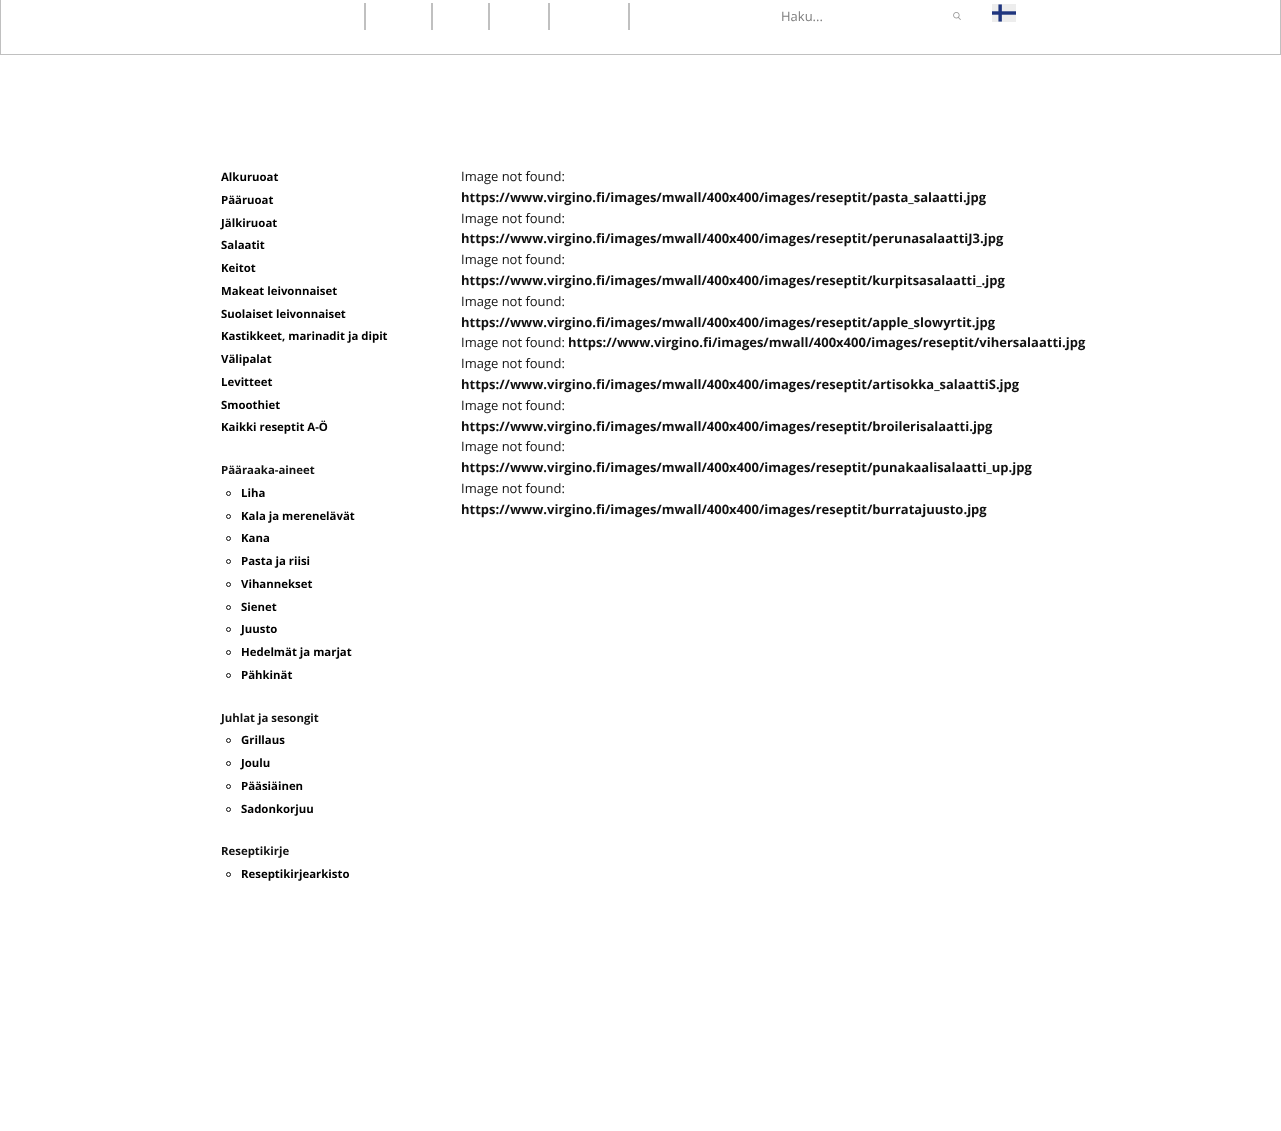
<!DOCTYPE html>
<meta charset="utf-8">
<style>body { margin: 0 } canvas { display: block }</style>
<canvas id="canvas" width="1281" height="1131"></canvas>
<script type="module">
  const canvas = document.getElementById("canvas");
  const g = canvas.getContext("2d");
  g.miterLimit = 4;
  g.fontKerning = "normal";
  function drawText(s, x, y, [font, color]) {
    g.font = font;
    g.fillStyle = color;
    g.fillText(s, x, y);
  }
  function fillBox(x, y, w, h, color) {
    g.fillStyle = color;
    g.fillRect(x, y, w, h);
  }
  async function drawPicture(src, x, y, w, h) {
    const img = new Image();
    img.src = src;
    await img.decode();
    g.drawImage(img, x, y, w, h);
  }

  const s1 = ["13px Open Sans", "#7E7E7E"];
  const s2 = ["bold 11.4px Open Sans", "#000000"];
  const s3 = ["bold 11.4px Open Sans", "#111111"];
  const s4 = ["13px Open Sans", "#111111"];
  const s5 = ["bold 13px Open Sans", "#111111"];

  fillBox(0, 0, 1281, 1131, "#FFFFFF");
  g.strokeStyle = "#C0C0C0";
  g.strokeRect(0.5, -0.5, 1280, 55);
  fillBox(364, 3, 2, 27, "#C0C0C0");
  fillBox(431, 3, 2, 27, "#C0C0C0");
  fillBox(488, 3, 2, 27, "#C0C0C0");
  fillBox(548, 3, 2, 27, "#C0C0C0");
  fillBox(628, 3, 2, 27, "#C0C0C0");
  drawText("Haku...", 781, 21, s1);
  await drawPicture("pic1.png", 953, 12, 8, 8);
  await drawPicture("pic2.png", 992, 4, 24, 18);
  drawText("Alkuruoat", 221, 181, s2);
  drawText("Pääruoat", 221, 204, s2);
  drawText("Jälkiruoat", 221, 227, s2);
  drawText("Salaatit", 221, 249, s2);
  drawText("Keitot", 221, 272, s2);
  drawText("Makeat leivonnaiset", 221, 295, s2);
  drawText("Suolaiset leivonnaiset", 221, 318, s2);
  drawText("Kastikkeet, marinadit ja dipit", 221, 340, s2);
  drawText("Välipalat", 221, 363, s2);
  drawText("Levitteet", 221, 386, s2);
  drawText("Smoothiet", 221, 409, s2);
  drawText("Kaikki reseptit A-Ö", 221, 431, s2);
  drawText("Pääraaka-aineet", 221, 474, s3);
  g.beginPath();
  g.arc(228.5, 493.5, 2, 0, Math.PI * 2);
  g.strokeStyle = "#111111";
  g.stroke();
  drawText("Liha", 241, 497, s2);
  g.beginPath();
  g.arc(228.5, 516.5, 2, 0, Math.PI * 2);
  g.stroke();
  drawText("Kala ja merenelävät", 241, 520, s2);
  g.beginPath();
  g.arc(228.5, 538.5, 2, 0, Math.PI * 2);
  g.stroke();
  drawText("Kana", 241, 542, s2);
  g.beginPath();
  g.arc(228.5, 561.5, 2, 0, Math.PI * 2);
  g.stroke();
  drawText("Pasta ja riisi", 241, 565, s2);
  g.beginPath();
  g.arc(228.5, 584.5, 2, 0, Math.PI * 2);
  g.stroke();
  drawText("Vihannekset", 241, 588, s2);
  g.beginPath();
  g.arc(228.5, 607.5, 2, 0, Math.PI * 2);
  g.stroke();
  drawText("Sienet", 241, 611, s2);
  g.beginPath();
  g.arc(228.5, 629.5, 2, 0, Math.PI * 2);
  g.stroke();
  drawText("Juusto", 241, 633, s2);
  g.beginPath();
  g.arc(228.5, 652.5, 2, 0, Math.PI * 2);
  g.stroke();
  drawText("Hedelmät ja marjat", 241, 656, s2);
  g.beginPath();
  g.arc(228.5, 675.5, 2, 0, Math.PI * 2);
  g.stroke();
  drawText("Pähkinät", 241, 679, s2);
  drawText("Juhlat ja sesongit", 221, 722, s3);
  g.beginPath();
  g.arc(228.5, 740.5, 2, 0, Math.PI * 2);
  g.stroke();
  drawText("Grillaus", 241, 744, s2);
  g.beginPath();
  g.arc(228.5, 763.5, 2, 0, Math.PI * 2);
  g.stroke();
  drawText("Joulu", 241, 767, s2);
  g.beginPath();
  g.arc(228.5, 786.5, 2, 0, Math.PI * 2);
  g.stroke();
  drawText("Pääsiäinen", 241, 790, s2);
  g.beginPath();
  g.arc(228.5, 809.5, 2, 0, Math.PI * 2);
  g.stroke();
  drawText("Sadonkorjuu", 241, 813, s2);
  drawText("Reseptikirje", 221, 855, s3);
  g.beginPath();
  g.arc(228.5, 874.5, 2, 0, Math.PI * 2);
  g.stroke();
  drawText("Reseptikirjearkisto", 241, 878, s2);
  drawText("Image not found:", 461, 181, s4);
  drawText("https://www.virgino.fi/images/mwall/400x400/images/reseptit/pasta_salaatti.jpg", 461, 202, s5);
  drawText("Image not found:", 461, 223, s4);
  drawText("https://www.virgino.fi/images/mwall/400x400/images/reseptit/perunasalaattiJ3.jpg", 461, 243, s5);
  drawText("Image not found:", 461, 264, s4);
  drawText("https://www.virgino.fi/images/mwall/400x400/images/reseptit/kurpitsasalaatti_.jpg", 461, 285, s5);
  drawText("Image not found:", 461, 306, s4);
  drawText("https://www.virgino.fi/images/mwall/400x400/images/reseptit/apple_slowyrtit.jpg", 461, 327, s5);
  drawText("Image not found:", 461, 347, s4);
  drawText("https://www.virgino.fi/images/mwall/400x400/images/reseptit/vihersalaatti.jpg", 568, 347, s5);
  drawText("Image not found:", 461, 368, s4);
  drawText("https://www.virgino.fi/images/mwall/400x400/images/reseptit/artisokka_salaattiS.jpg", 461, 389, s5);
  drawText("Image not found:", 461, 410, s4);
  drawText("https://www.virgino.fi/images/mwall/400x400/images/reseptit/broilerisalaatti.jpg", 461, 431, s5);
  drawText("Image not found:", 461, 451, s4);
  drawText("https://www.virgino.fi/images/mwall/400x400/images/reseptit/punakaalisalaatti_up.jpg", 461, 472, s5);
  drawText("Image not found:", 461, 493, s4);
  drawText("https://www.virgino.fi/images/mwall/400x400/images/reseptit/burratajuusto.jpg", 461, 514, s5);
</script>
